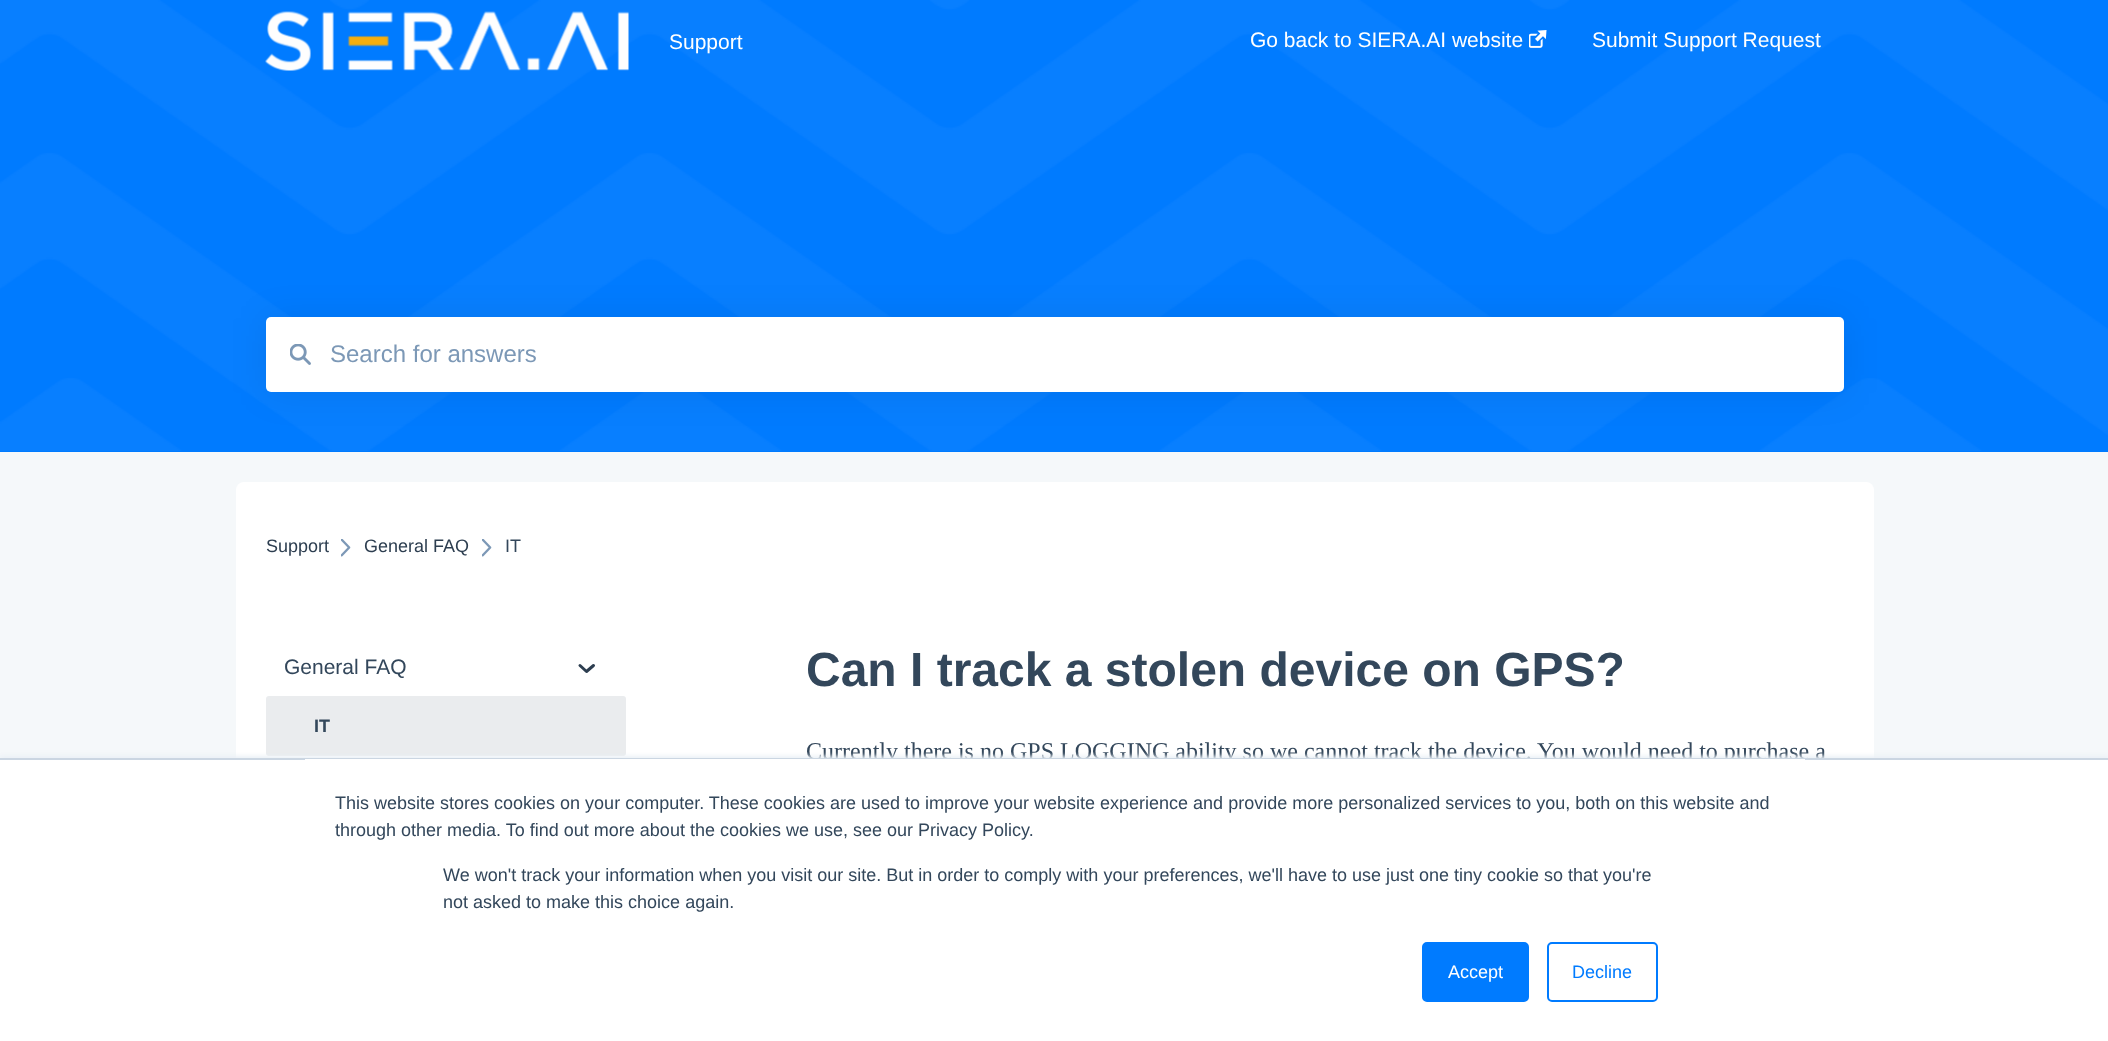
<!DOCTYPE html>
<meta charset="utf-8">
<style>body { margin: 0 } canvas { display: block }</style>
<canvas id="canvas" width="2108" height="1041"></canvas>
<script type="module">
  const canvas = document.getElementById("canvas");
  const g = canvas.getContext("2d");
  g.miterLimit = 4;
  g.fontKerning = "normal";
  function drawText(s, x, y, [font, color]) {
    g.font = font;
    g.fillStyle = color;
    g.fillText(s, x, y);
  }
  function fillBox(x, y, w, h, color) {
    g.fillStyle = color;
    g.fillRect(x, y, w, h);
  }
  function fillRounded(x, y, w, h, r, color) {
    g.fillStyle = color;
    g.beginPath();
    g.roundRect(x, y, w, h, r);
    g.fill();
  }
  async function drawPicture(src, x, y, w, h) {
    const img = new Image();
    img.src = src;
    await img.decode();
    g.drawImage(img, x, y, w, h);
  }

  const s1 = ["21px Liberation Sans", "#FFFFFF"];
  const s2 = ["24px Liberation Sans", "#7C98B6"];
  const s3 = ["18px Liberation Sans", "#2D3E50"];
  const s4 = ["18px Liberation Sans", "#33475B"];
  const s5 = ["21px Liberation Sans", "#33475B"];
  const s6 = ["bold 18px Liberation Sans", "#33475B"];
  const s7 = ["bold 48px Liberation Sans", "#33475B"];
  const s8 = ["24px Liberation Serif", "#33475B"];
  const s9 = ["18px Liberation Sans", "#FFFFFF"];
  const s10 = ["18px Liberation Sans", "#007BFF"];

  fillBox(0, 0, 2108, 1041, "#F5F8FA");
  fillBox(0, 0, 2108, 452, "#007BFF");
  await drawPicture("pic3.png", 0, 0, 2108, 451);
  await drawPicture("pic1.png", 265, 11, 364, 60);
  drawText("Support", 669, 49, s1);
  drawText("Go back to SIERA.AI website", 1250, 47, s1);
  await drawPicture("pic2.png", 1529, 30, 18, 18);
  drawText("Submit Support Request", 1592, 47, s1);
  g.fillStyle = "rgba(0, 0, 0, 0.08)";
  g.filter = "blur(18px)";
  g.beginPath();
  g.roundRect(266, 318, 1578, 75, 5);
  g.fill();
  g.filter = "none";
  fillRounded(266, 317, 1578, 75, 5, "#FFFFFF");
  await drawPicture("pic4.png", 290, 344, 21, 21);
  drawText("Search for answers", 330, 362, s2);
  fillRounded(236, 482, 1638, 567, 8, "#FFFFFF");
  drawText("Support", 266, 552, s3);
  await drawPicture("pic5.png", 341, 539, 10, 18);
  drawText("General FAQ", 364, 552, s3);
  await drawPicture("pic5.png", 482, 539, 10, 18);
  drawText("IT", 505, 552, s4);
  drawText("General FAQ", 284, 674, s5);
  g.beginPath();
  g.moveTo(593.5, 665.5);
  g.lineTo(586.5, 671.5);
  g.lineTo(580, 665.5);
  g.strokeStyle = "#2D3E50";
  g.lineWidth = 3;
  g.lineCap = "round";
  g.lineJoin = "round";
  g.stroke();
  fillRounded(266, 696, 360, 60, 3, "#EAECEE");
  drawText("IT", 314, 732, s6);
  drawText("Can I track a stolen device on GPS?", 806, 686, s7);
  drawText("Currently there is no GPS LOGGING ability so we cannot track the device. You would need to purchase a", 806, 759, s8);
  g.fillStyle = "#EAF0F6";
  g.filter = "blur(2px)";
  g.beginPath();
  g.rect(0, 756, 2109, 284);
  g.fill();
  g.filter = "none";
  fillBox(0, 760, 2108, 281, "#FFFFFF");
  fillBox(0, 758, 2108, 2, "#CBD6E2");
  fillBox(305, 759, 1500, 1, "#FFFFFF");
  drawText("This website stores cookies on your computer. These cookies are used to improve your website experience and provide more personalized services to you, both on this website and", 335, 809, s4);
  drawText("through other media. To find out more about the cookies we use, see our Privacy Policy.", 335, 836, s4);
  drawText("We won't track your information when you visit our site. But in order to comply with your preferences, we'll have to use just one tiny cookie so that you're", 443, 881, s4);
  drawText("not asked to make this choice again.", 443, 908, s4);
  g.fillStyle = "#007BFF";
  g.beginPath();
  g.roundRect(1423, 943, 105, 58, 4);
  g.fill();
  g.strokeStyle = "#007BFF";
  g.lineWidth = 2;
  g.lineJoin = "miter";
  g.stroke();
  drawText("Accept", 1448, 978, s9);
  g.beginPath();
  g.roundRect(1548, 943, 109, 58, 4);
  g.stroke();
  drawText("Decline", 1572, 978, s10);
</script>
